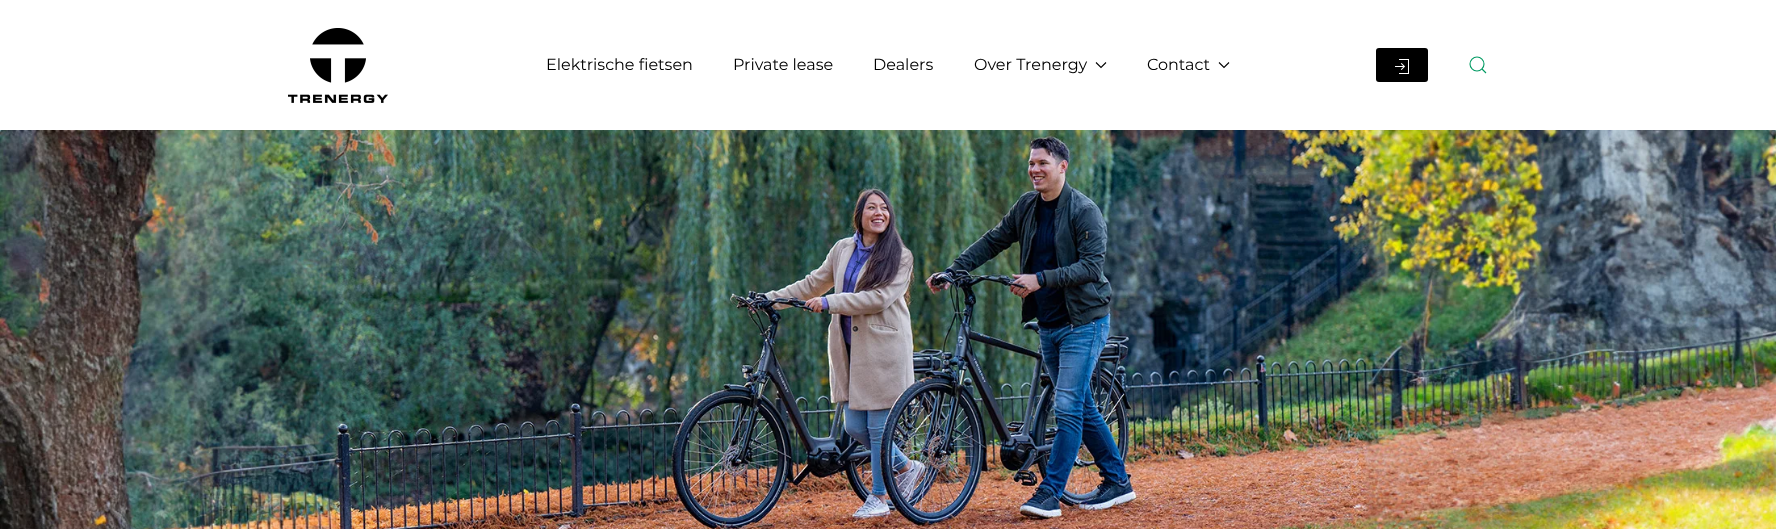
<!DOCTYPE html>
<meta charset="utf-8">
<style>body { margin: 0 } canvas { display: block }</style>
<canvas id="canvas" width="1776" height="529"></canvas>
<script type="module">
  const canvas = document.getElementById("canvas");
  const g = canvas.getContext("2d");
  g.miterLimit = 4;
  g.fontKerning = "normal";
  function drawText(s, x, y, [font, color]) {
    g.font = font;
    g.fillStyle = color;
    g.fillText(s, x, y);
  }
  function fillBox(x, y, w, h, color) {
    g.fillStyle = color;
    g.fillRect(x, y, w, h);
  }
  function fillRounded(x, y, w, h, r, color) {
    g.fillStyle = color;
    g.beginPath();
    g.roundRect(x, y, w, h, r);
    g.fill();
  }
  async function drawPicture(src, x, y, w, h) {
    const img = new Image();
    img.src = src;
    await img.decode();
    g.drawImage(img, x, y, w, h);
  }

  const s1 = ["100 16px Montserrat", "#000000"];

  fillBox(0, 0, 1776, 529, "#FFFFFF");
  await drawPicture("pic1.png", 288, 28, 100, 75);
  drawText("Elektrische fietsen", 546, 70, s1);
  drawText("Private lease", 733, 70, s1);
  drawText("Dealers", 873, 70, s1);
  drawText("Over Trenergy", 974, 70, s1);
  g.beginPath();
  g.moveTo(1096, 62.5);
  g.lineTo(1101, 67.5);
  g.lineTo(1106, 62.5);
  g.strokeStyle = "#000000";
  g.lineWidth = 1.1;
  g.stroke();
  drawText("Contact", 1147, 70, s1);
  g.beginPath();
  g.moveTo(1219, 62.5);
  g.lineTo(1224, 67.5);
  g.lineTo(1229, 62.5);
  g.stroke();
  fillRounded(1376, 48, 52, 34, 3, "#000000");
  await drawPicture("pic2.png", 1395, 59, 14, 15);
  g.beginPath();
  g.arc(1477, 64, 7, 0, Math.PI * 2);
  g.strokeStyle = "#009A62";
  g.stroke();
  g.beginPath();
  g.moveTo(1482, 69);
  g.lineTo(1486, 73);
  g.closePath();
  g.stroke();
  await drawPicture("pic3.png", 0, 130, 1776, 399);
</script>
